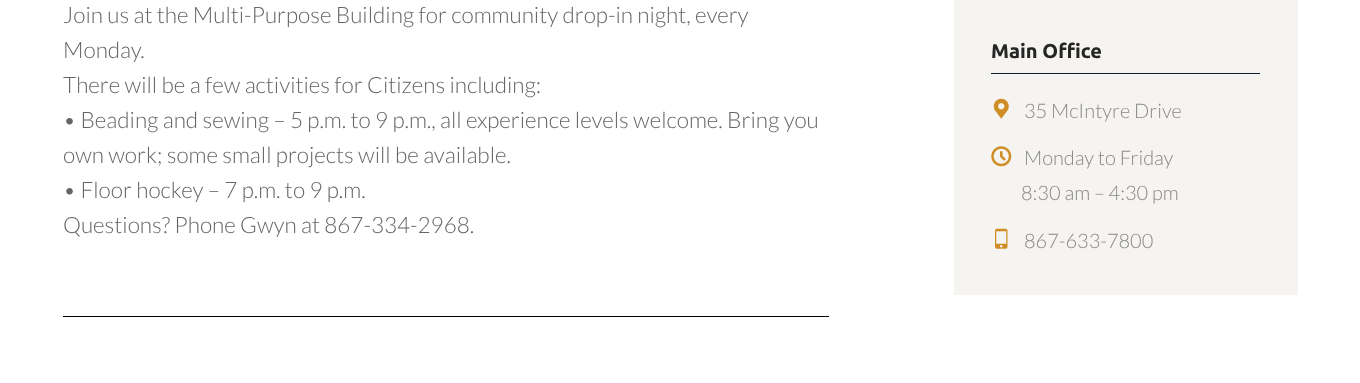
<!DOCTYPE html>
<meta charset="utf-8">
<style>body { margin: 0 } canvas { display: block }</style>
<canvas id="canvas" width="1360" height="383"></canvas>
<script type="module">
  const canvas = document.getElementById("canvas");
  const g = canvas.getContext("2d");
  g.miterLimit = 4;
  g.fontKerning = "normal";
  function drawText(s, x, y, [font, color]) {
    g.font = font;
    g.fillStyle = color;
    g.fillText(s, x, y);
  }
  function fillBox(x, y, w, h, color) {
    g.fillStyle = color;
    g.fillRect(x, y, w, h);
  }
  async function drawPicture(src, x, y, w, h) {
    const img = new Image();
    img.src = src;
    await img.decode();
    g.drawImage(img, x, y, w, h);
  }

  const s1 = ["300 22.5px Lato", "#656565"];
  const s2 = ["bold 20px Ubuntu", "#252525"];
  const s3 = ["300 20px Lato", "#898989"];

  fillBox(0, 0, 1360, 383, "#FFFFFF");
  drawText("Join us at the Multi-Purpose Building for community drop-in night, every", 63, 23, s1);
  drawText("Monday.", 63, 58, s1);
  drawText("There will be a few activities for Citizens including:", 63, 93, s1);
  drawText("• Beading and sewing – 5 p.m. to 9 p.m., all experience levels welcome. Bring you", 63, 128, s1);
  drawText("own work; some small projects will be available.", 63, 163, s1);
  drawText("• Floor hockey – 7 p.m. to 9 p.m.", 63, 198, s1);
  drawText("Questions? Phone Gwyn at 867-334-2968.", 63, 233, s1);
  fillBox(63, 316, 766, 1, "#000000");
  fillBox(954, 0, 344, 295, "#F6F4F0");
  fillBox(991, 73, 269, 1, "#0A2234");
  drawText("Main Office", 991, 58, s2);
  await drawPicture("pic1.png", 993, 98, 16, 21);
  drawText("35 McIntyre Drive", 1024, 118, s3);
  await drawPicture("pic2.png", 991, 146, 21, 21);
  drawText("Monday to Friday", 1024, 165, s3);
  drawText("8:30 am – 4:30 pm", 1021, 200, s3);
  await drawPicture("pic3.png", 995, 228, 13, 21);
  drawText("867-633-7800", 1024, 248, s3);
</script>
